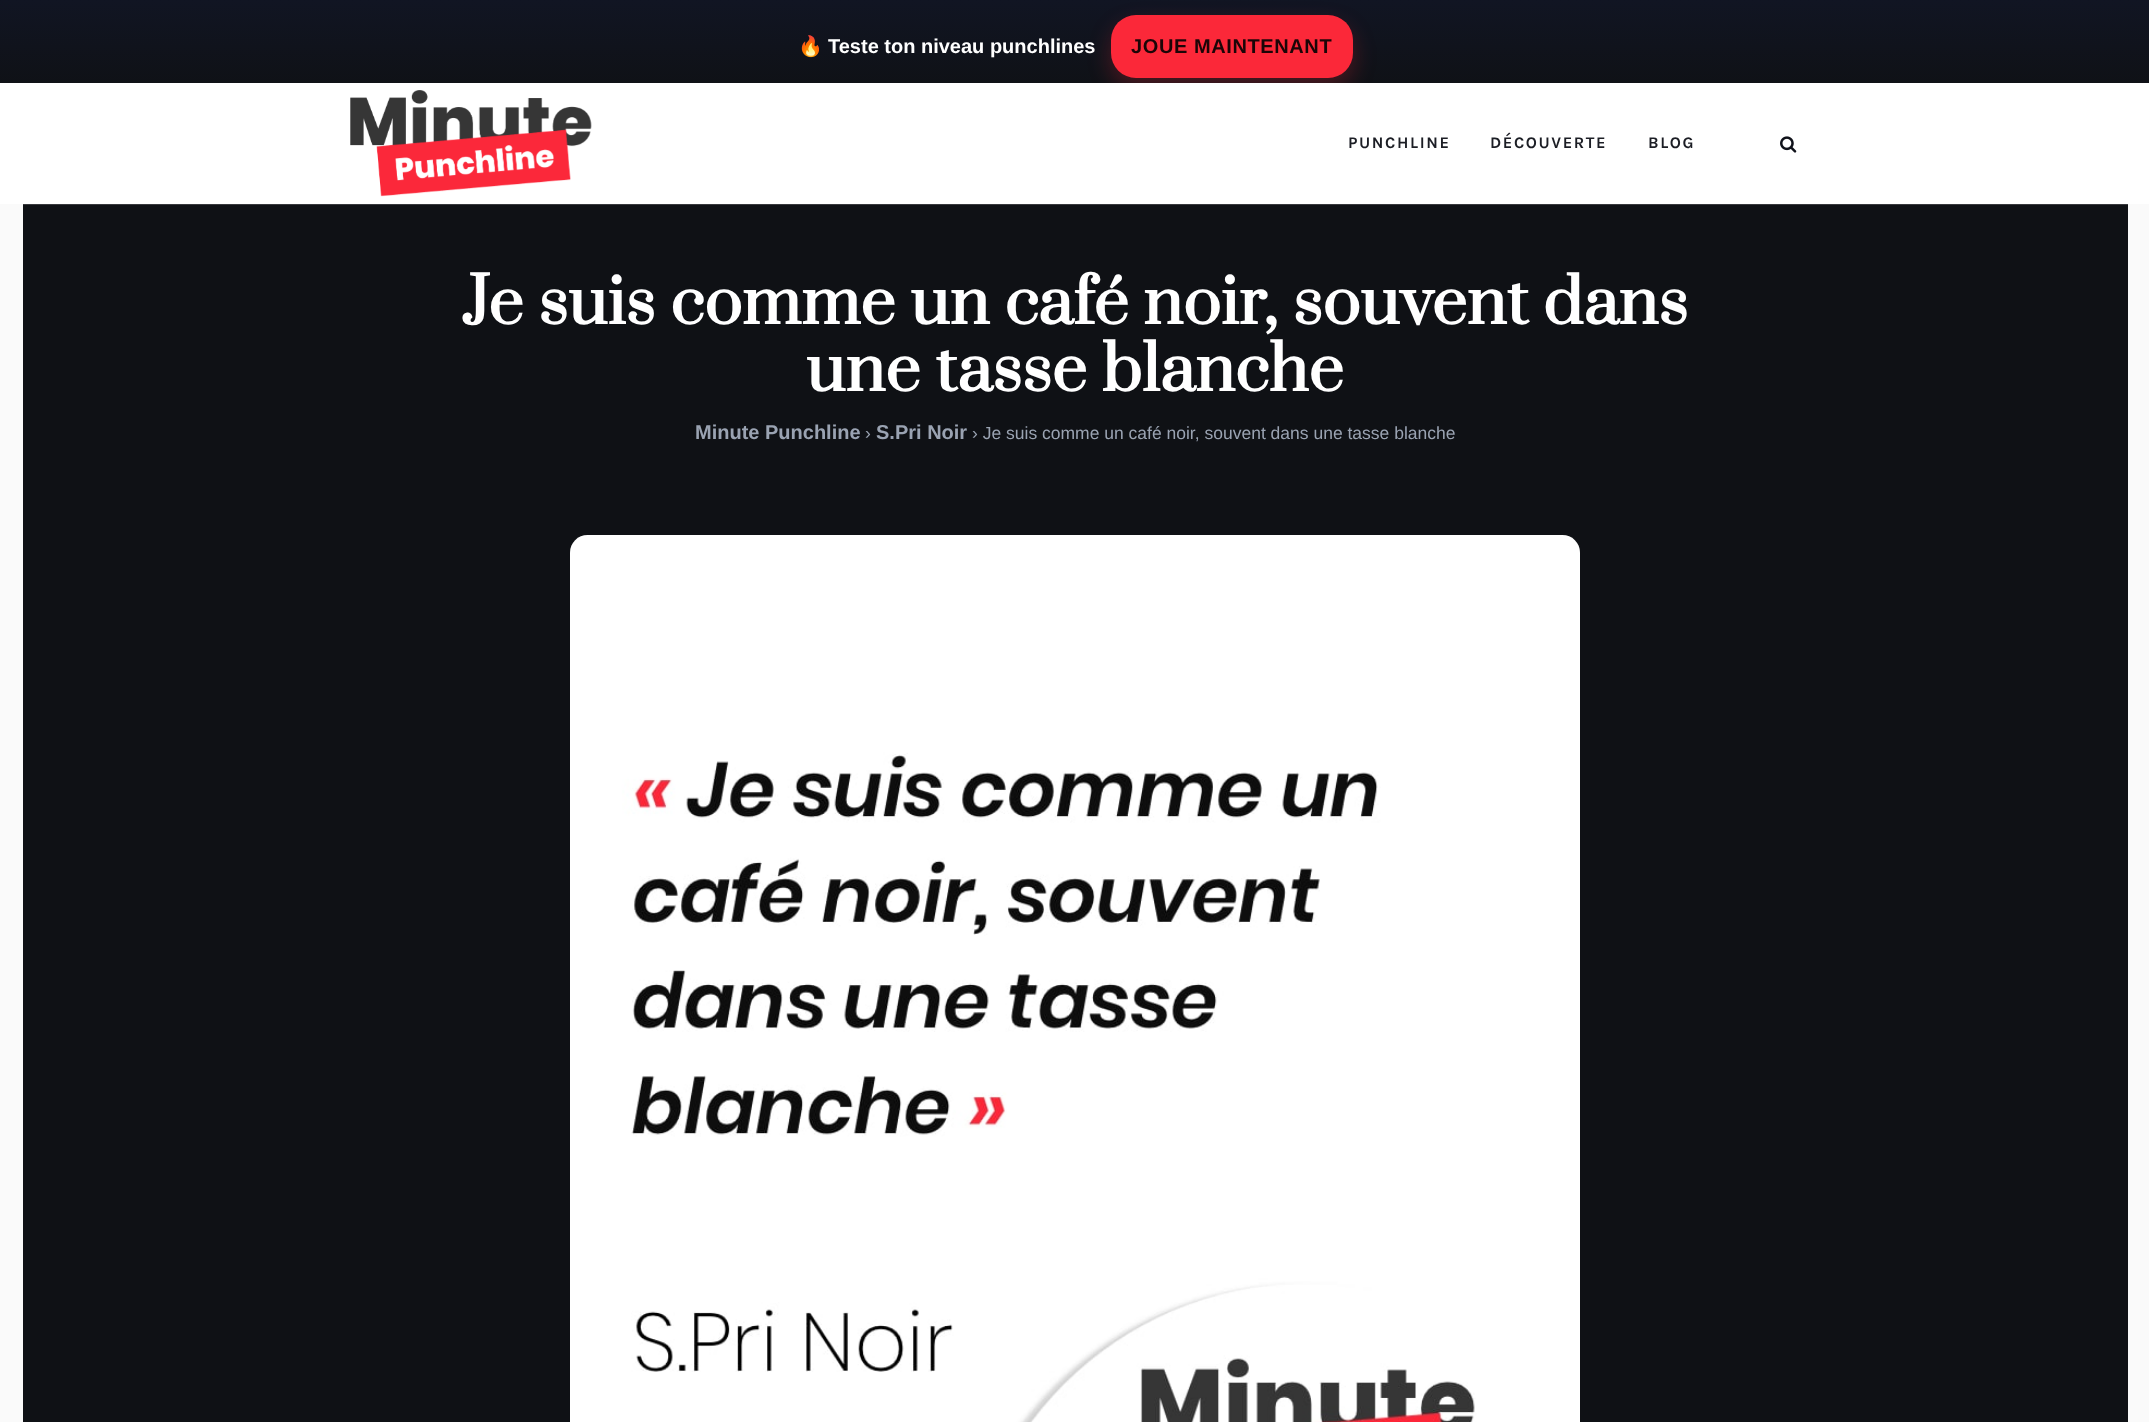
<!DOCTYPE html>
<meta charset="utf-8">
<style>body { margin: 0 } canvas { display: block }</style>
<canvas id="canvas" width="2149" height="1422"></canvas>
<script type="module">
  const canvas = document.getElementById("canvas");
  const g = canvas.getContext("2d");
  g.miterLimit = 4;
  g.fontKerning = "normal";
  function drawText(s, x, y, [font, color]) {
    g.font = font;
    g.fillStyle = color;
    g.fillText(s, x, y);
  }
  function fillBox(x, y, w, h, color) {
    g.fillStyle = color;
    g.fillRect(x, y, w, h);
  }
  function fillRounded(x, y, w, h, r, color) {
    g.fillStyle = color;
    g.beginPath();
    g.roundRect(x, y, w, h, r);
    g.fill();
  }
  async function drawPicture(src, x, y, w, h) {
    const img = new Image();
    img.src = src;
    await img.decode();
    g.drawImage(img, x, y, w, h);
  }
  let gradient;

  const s1 = ["bold 20px Noto Color Emoji", "#FFFFFF"];
  const s2 = ["bold 20px Liberation Sans", "#FFFFFF"];
  const s3 = ["bold 20px Liberation Sans", "#1B0507"];
  const s4 = ["bold 16.25px Karla", "#1C1E25"];
  const s5 = ["bold 62.5px Prata", "#FFFFFF"];
  const s6 = ["bold 20px Liberation Sans", "#9AA3B2"];
  const s7 = ["17.5px Liberation Sans", "#9AA3B2"];

  fillBox(0, 0, 2149, 1422, "#FAFAFA");
  gradient = g.createLinearGradient(1075, 0, 1075, 93);
  gradient.addColorStop(0, "#111523");
  gradient.addColorStop(1, "#0F1115");
  g.fillStyle = gradient;
  g.fillRect(0, 0, 2149, 83);
  drawText("🔥", 798, 53, s1);
  drawText("Teste ton niveau punchlines", 828, 53, s2);
  g.fillStyle = "rgba(251, 40, 57, 0.25)";
  g.filter = "blur(11px)";
  g.beginPath();
  g.roundRect(1111, 25, 242, 63, 25);
  g.fill();
  g.filter = "none";
  fillRounded(1111, 15, 242, 63, 25, "#FB2839");
  g.letterSpacing = "0.6px";
  drawText("JOUE MAINTENANT", 1131, 53, s3);
  fillBox(0, 83, 2149, 121, "#FFFFFF");
  await drawPicture("pic1.png", 350, 90, 242, 107);
  g.letterSpacing = "1.6px";
  drawText("PUNCHLINE", 1348, 148, s4);
  drawText("DÉCOUVERTE", 1490, 148, s4);
  drawText("BLOG", 1648, 148, s4);
  await drawPicture("pic2.png", 1780, 136, 17, 17);
  fillBox(23, 205, 2105, 1217, "#0F1115");
  fillBox(23, 204, 2105, 1, "#38393D");
  g.letterSpacing = "0px";
  drawText("Je suis comme un café noir, souvent dans", 462, 324, s5);
  drawText("une tasse blanche", 806, 391, s5);
  drawText("Minute Punchline", 695, 439, s6);
  drawText("›", 865, 439, s7);
  drawText("S.Pri Noir", 876, 439, s6);
  drawText("› Je suis comme un café noir, souvent dans une tasse blanche", 972, 439, s7);
  await drawPicture("pic3.png", 570, 535, 1010, 887);
</script>
